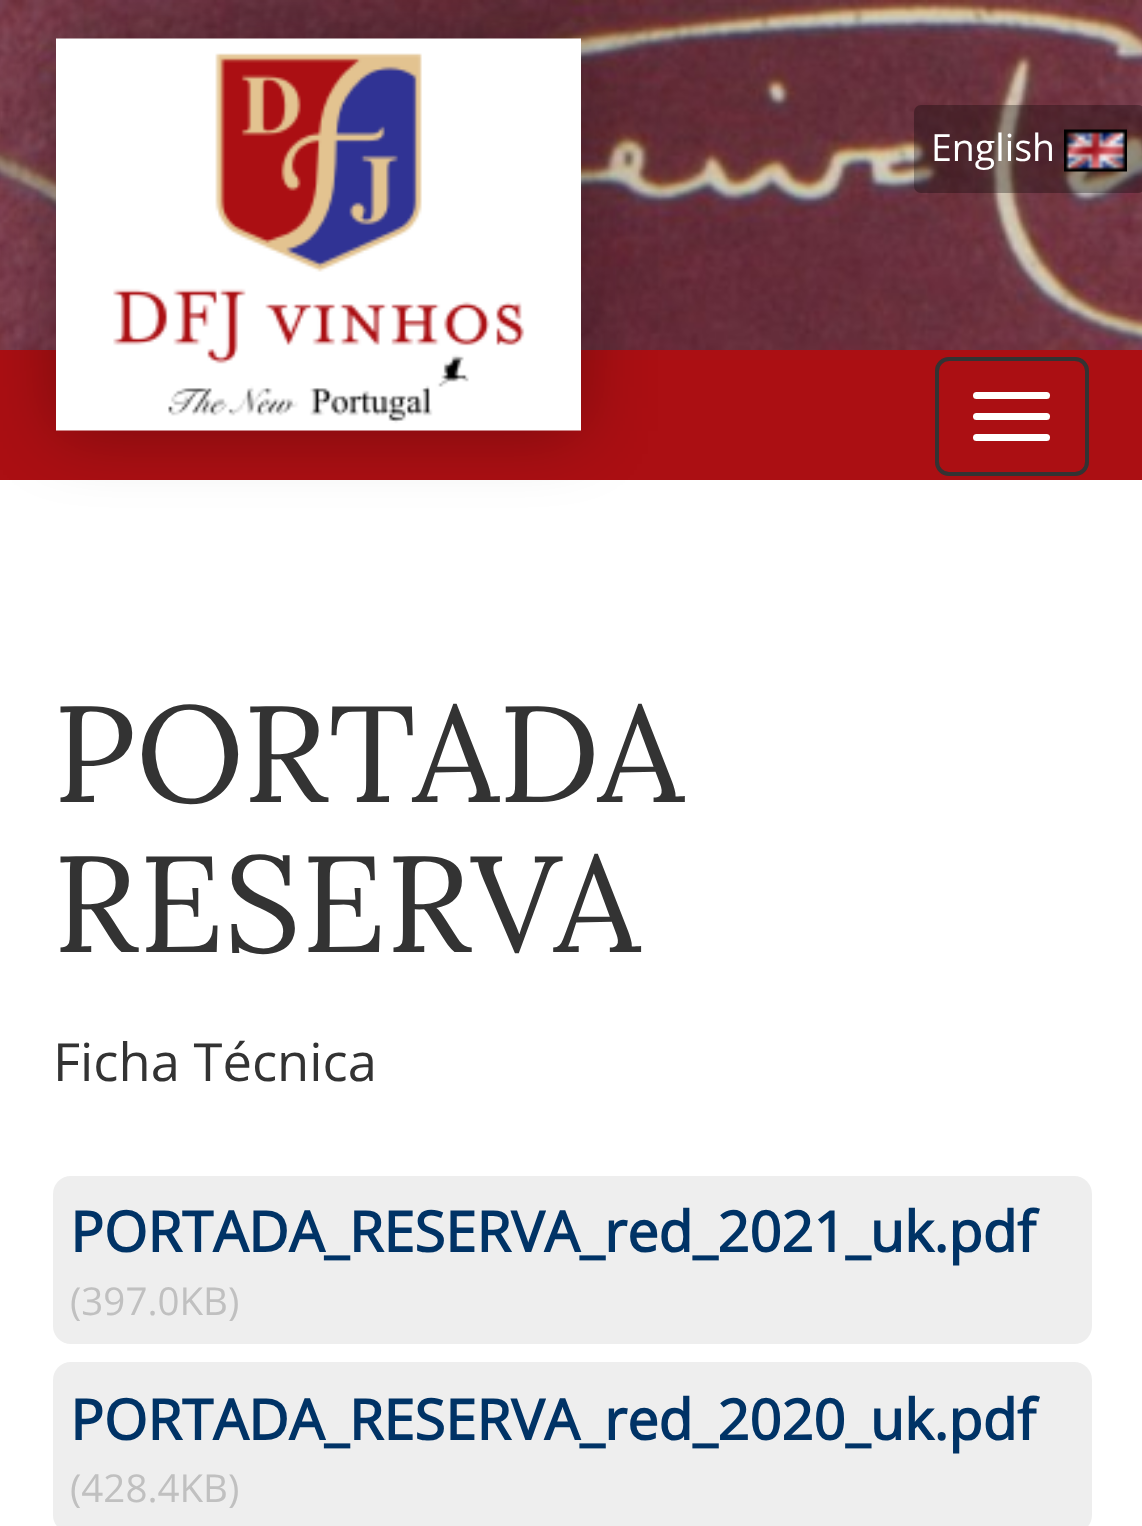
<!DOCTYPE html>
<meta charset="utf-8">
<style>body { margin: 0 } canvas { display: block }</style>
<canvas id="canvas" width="1142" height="1526"></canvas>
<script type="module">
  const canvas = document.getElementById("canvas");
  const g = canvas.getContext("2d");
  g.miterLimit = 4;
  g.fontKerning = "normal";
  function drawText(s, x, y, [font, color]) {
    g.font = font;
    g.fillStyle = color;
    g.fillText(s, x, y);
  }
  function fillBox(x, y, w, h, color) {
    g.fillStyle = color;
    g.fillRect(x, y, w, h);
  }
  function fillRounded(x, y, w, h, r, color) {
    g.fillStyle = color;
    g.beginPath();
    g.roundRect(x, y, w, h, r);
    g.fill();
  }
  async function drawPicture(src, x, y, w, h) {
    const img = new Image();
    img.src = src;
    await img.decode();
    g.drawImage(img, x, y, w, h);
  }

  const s1 = ["37.5px Open Sans", "#FFFFFF"];
  const s2 = ["136.5px Lora", "#333333"];
  const s3 = ["52.5px Open Sans", "#333333"];
  const s4 = ["bold 56px Open Sans", "#003366"];
  const s5 = ["38.5px Open Sans", "#C0C0C0"];

  fillBox(0, 0, 1142, 1526, "#FFFFFF");
  fillBox(0, 350, 1142, 130, "#AB0F13");
  await drawPicture("pic2.png", 0, 0, 1142, 350);
  g.fillStyle = "rgba(0, 0, 0, 0.3)";
  g.filter = "blur(35px)";
  g.beginPath();
  g.rect(56, 39, 525, 392);
  g.fill();
  g.filter = "none";
  await drawPicture("pic1.png", 56, 38, 525, 393);
  g.beginPath();
  g.roundRect(937, 359, 150, 115, 12);
  g.strokeStyle = "#333333";
  g.lineWidth = 4;
  g.stroke();
  fillRounded(973, 392, 77, 7, 3.5, "#FFFFFF");
  fillRounded(973, 413, 77, 7, 3.5, "#FFFFFF");
  fillRounded(973, 434, 77, 7, 3.5, "#FFFFFF");
  fillRounded(914, 105, 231, 88, 7, "rgba(0, 0, 0, 0.3)");
  drawText("English", 931, 161, s1);
  await drawPicture("pic3.png", 1064, 129, 63, 43);
  drawText("PORTADA", 53, 802, s2);
  drawText("RESERVA", 53, 952, s2);
  drawText("Ficha Técnica", 53, 1081, s3);
  fillRounded(53, 1176, 1039, 168, 18, "#EEEEEE");
  drawText("PORTADA_RESERVA_red_2021_uk.pdf", 70, 1252, s4);
  drawText("(397.0KB)", 70, 1315, s5);
  fillRounded(53, 1362, 1039, 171, 18, "#EEEEEE");
  drawText("PORTADA_RESERVA_red_2020_uk.pdf", 70, 1440, s4);
  drawText("(428.4KB)", 70, 1502, s5);
</script>
